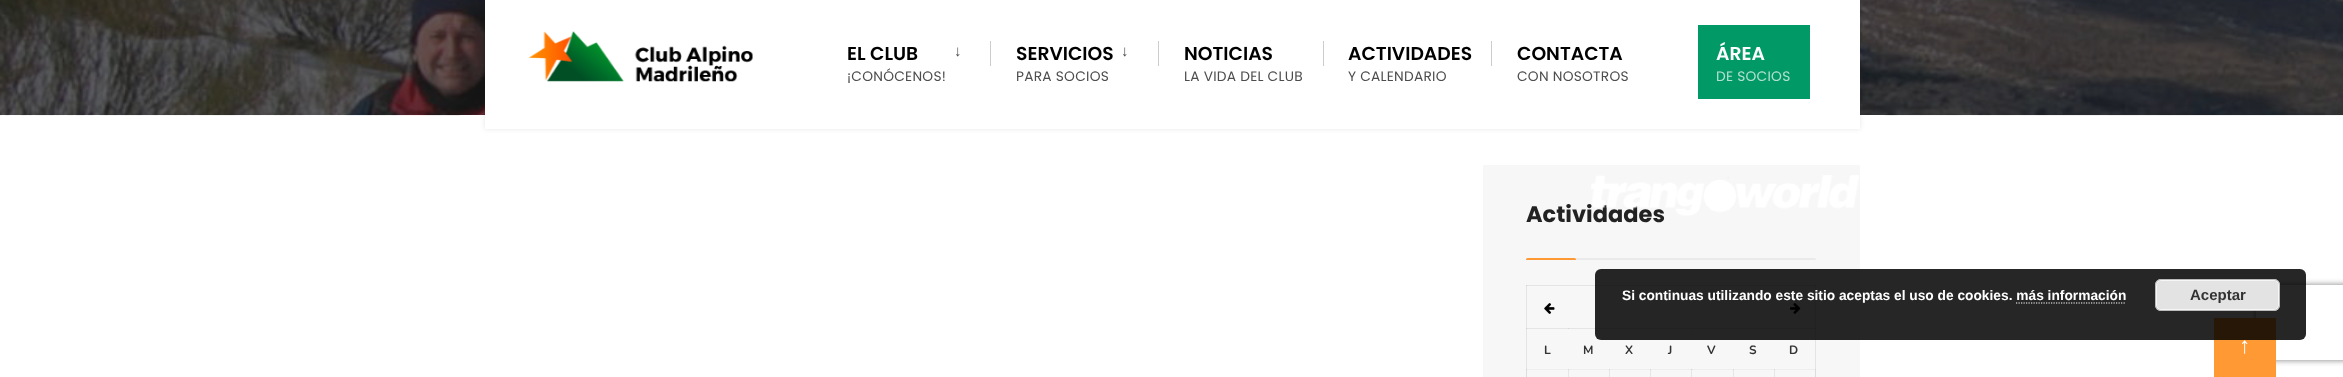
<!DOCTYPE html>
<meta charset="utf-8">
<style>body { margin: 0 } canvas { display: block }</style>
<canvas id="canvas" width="2343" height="377"></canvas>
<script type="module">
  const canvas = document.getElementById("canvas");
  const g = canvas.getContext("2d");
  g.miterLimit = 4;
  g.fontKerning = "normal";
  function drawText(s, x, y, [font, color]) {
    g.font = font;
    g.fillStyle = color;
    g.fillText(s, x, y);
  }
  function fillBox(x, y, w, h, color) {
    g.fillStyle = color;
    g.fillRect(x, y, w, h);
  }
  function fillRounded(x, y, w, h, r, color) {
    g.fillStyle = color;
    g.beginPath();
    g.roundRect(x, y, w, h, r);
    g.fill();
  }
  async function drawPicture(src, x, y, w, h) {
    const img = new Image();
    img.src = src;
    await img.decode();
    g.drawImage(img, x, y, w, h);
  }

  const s1 = ["600 18.75px Poppins", "#000000"];
  const s2 = ["15px Liberation Sans", "#4D4D4D"];
  const s3 = ["13.75px Poppins", "#4D4D4D"];
  const s4 = ["600 18.75px Poppins", "#FFFFFF"];
  const s5 = ["13.75px Poppins", "#B3E0D1"];
  const s6 = ["bold 22.5px Poppins", "#222222"];
  const s7 = ["bold 12px Nunito", "#333333"];
  const s8 = ["22.5px Liberation Serif", "#FFFFFF"];
  const s9 = ["bold 13.75px Liberation Sans", "#FFFFFF"];
  const s10 = ["bold 15px Liberation Sans", "#333333"];

  fillBox(0, 0, 2343, 377, "#FFFFFF");
  fillBox(0, 0, 2343, 115, "#1E1E1E");
  await drawPicture("pic3.png", 0, 0, 2343, 116);
  fillBox(460, 115, 1425, 1, "#FFFFFF");
  g.fillStyle = "rgba(0, 0, 0, 0.1)";
  g.filter = "blur(2.5px)";
  g.beginPath();
  g.rect(485, 0, 1375, 129);
  g.fill();
  g.filter = "none";
  fillBox(485, 0, 1375, 129, "#FFFFFF");
  await drawPicture("pic1.png", 528, 31, 225, 51);
  drawText("EL CLUB", 847, 60, s1);
  drawText("↓", 954, 56, s2);
  g.letterSpacing = "0.25px";
  drawText("¡CONÓCENOS!", 847, 81, s3);
  fillBox(990, 41, 1, 25, "#CCCCCC");
  g.letterSpacing = "0px";
  drawText("SERVICIOS", 1016, 60, s1);
  drawText("↓", 1121, 56, s2);
  g.letterSpacing = "0.25px";
  drawText("PARA SOCIOS", 1016, 81, s3);
  fillBox(1158, 41, 1, 25, "#CCCCCC");
  g.letterSpacing = "0px";
  drawText("NOTICIAS", 1184, 60, s1);
  g.letterSpacing = "0.25px";
  drawText("LA VIDA DEL CLUB", 1184, 81, s3);
  fillBox(1323, 41, 1, 25, "#CCCCCC");
  g.letterSpacing = "0px";
  drawText("ACTIVIDADES", 1348, 60, s1);
  g.letterSpacing = "0.25px";
  drawText("Y CALENDARIO", 1348, 81, s3);
  fillBox(1491, 41, 1, 25, "#CCCCCC");
  g.letterSpacing = "0px";
  drawText("CONTACTA", 1517, 60, s1);
  g.letterSpacing = "0.25px";
  drawText("CON NOSOTROS", 1517, 81, s3);
  fillBox(1698, 25, 112, 74, "#019966");
  g.letterSpacing = "0px";
  drawText("ÁREA", 1716, 60, s4);
  g.letterSpacing = "0.25px";
  drawText("DE SOCIOS", 1716, 81, s5);
  fillBox(1483, 165, 377, 212, "#F7F7F7");
  g.letterSpacing = "0px";
  drawText("Actividades", 1526, 222, s6);
  await drawPicture("pic2.png", 1591, 175, 268, 41);
  fillBox(1526, 328, 290, 1, "#E4E4E4");
  fillBox(1568, 328, 1, 1, "#D5D5D5");
  fillBox(1609, 328, 1, 1, "#D5D5D5");
  fillBox(1650, 328, 1, 1, "#D5D5D5");
  fillBox(1691, 328, 2, 1, "#D5D5D5");
  fillBox(1733, 328, 1, 1, "#D5D5D5");
  fillBox(1774, 328, 1, 1, "#D5D5D5");
  fillBox(1526, 369, 43, 1, "#EEEEEE");
  fillBox(1568, 369, 1, 8, "#E6E6E6");
  fillBox(1568, 369, 42, 1, "#EEEEEE");
  fillBox(1568, 369, 1, 1, "#D7D7D7");
  fillBox(1609, 369, 1, 8, "#E6E6E6");
  fillBox(1609, 369, 42, 1, "#EEEEEE");
  fillBox(1609, 369, 1, 1, "#D7D7D7");
  fillBox(1650, 369, 1, 8, "#E6E6E6");
  fillBox(1650, 369, 43, 1, "#EEEEEE");
  fillBox(1650, 369, 1, 1, "#D7D7D7");
  fillBox(1691, 369, 1, 8, "#E6E6E6");
  fillBox(1691, 369, 43, 1, "#EEEEEE");
  fillBox(1691, 369, 2, 1, "#E6E6E6");
  fillBox(1691, 369, 1, 1, "#D7D7D7");
  fillBox(1733, 369, 1, 8, "#E6E6E6");
  fillBox(1733, 369, 42, 1, "#EEEEEE");
  fillBox(1733, 369, 1, 1, "#D7D7D7");
  fillBox(1774, 369, 1, 8, "#E6E6E6");
  fillBox(1774, 369, 42, 1, "#EEEEEE");
  fillBox(1774, 369, 1, 1, "#D7D7D7");
  fillBox(1526, 285, 1, 92, "#E4E4E4");
  fillBox(1526, 328, 1, 1, "#D5D5D5");
  fillBox(1526, 369, 1, 8, "#DDDDDD");
  fillBox(1526, 369, 1, 1, "#D6D6D6");
  fillBox(1815, 285, 1, 92, "#E4E4E4");
  fillBox(1815, 328, 1, 1, "#D5D5D5");
  fillBox(1815, 369, 1, 8, "#DDDDDD");
  fillBox(1815, 369, 1, 1, "#D6D6D6");
  g.save();
  g.beginPath();
  g.rect(1526, 189, 290, 71);
  g.clip();
  fillRounded(1574, 258, 242, 3, 1.5, "#EAEAEA");
  fillRounded(1526, 258, 50, 3, 1.5, "#FF9934");
  g.restore();
  fillBox(1526, 285, 290, 1, "#E4E4E4");
  fillBox(1526, 285, 1, 1, "#D5D5D5");
  fillBox(1815, 285, 1, 1, "#D5D5D5");
  await drawPicture("pic4.png", 1544, 303, 11, 11);
  await drawPicture("pic5.png", 1790, 303, 11, 11);
  drawText("L", 1544, 354, s7);
  drawText("M", 1583, 354, s7);
  drawText("X", 1625, 354, s7);
  drawText("J", 1668, 354, s7);
  drawText("V", 1707, 354, s7);
  drawText("S", 1749, 354, s7);
  drawText("D", 1789, 354, s7);
  g.save();
  g.beginPath();
  g.moveTo(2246, 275);
  g.lineTo(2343, 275);
  g.lineTo(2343, 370);
  g.lineTo(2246, 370);
  g.closePath();
  g.moveTo(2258.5, 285);
  g.lineTo(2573.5, 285);
  g.bezierCurveTo(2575, 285, 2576, 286, 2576, 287.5);
  g.lineTo(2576, 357.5);
  g.bezierCurveTo(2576, 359, 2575, 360, 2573.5, 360);
  g.lineTo(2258.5, 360);
  g.bezierCurveTo(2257, 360, 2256, 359, 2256, 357.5);
  g.lineTo(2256, 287.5);
  g.bezierCurveTo(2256, 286, 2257, 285, 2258.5, 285);
  g.closePath();
  g.clip("evenodd");
  g.fillStyle = "#808080";
  g.filter = "blur(3px)";
  g.beginPath();
  g.roundRect(2256, 285, 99, 75, 2.5);
  g.fill();
  g.filter = "none";
  g.restore();
  fillBox(2214, 318, 62, 59, "#FF9934");
  drawText("↑", 2239, 353, s8);
  fillRounded(1595, 269, 711, 71, 6, "rgba(0, 0, 0, 0.85)");
  drawText("Si continuas utilizando este sitio aceptas el uso de cookies. más información", 1622, 300, s9);
  fillRounded(2155, 279, 125, 32, 6, "#E3E3E3");
  g.beginPath();
  g.roundRect(2156.5, 280.5, 122, 29, 4.5);
  g.strokeStyle = "#F6F6F6";
  g.stroke();
  g.beginPath();
  g.roundRect(2155.5, 279.5, 124, 31, 5.5);
  g.strokeStyle = "#BBBBBB";
  g.stroke();
  drawText("Aceptar", 2190, 300, s10);
  g.beginPath();
  g.moveTo(2016, 303);
  g.lineTo(2126, 303);
  g.strokeStyle = "#FFFFFF";
  g.lineWidth = 1.2;
  g.setLineDash([1.25, 1.25]);
  g.stroke();
</script>
